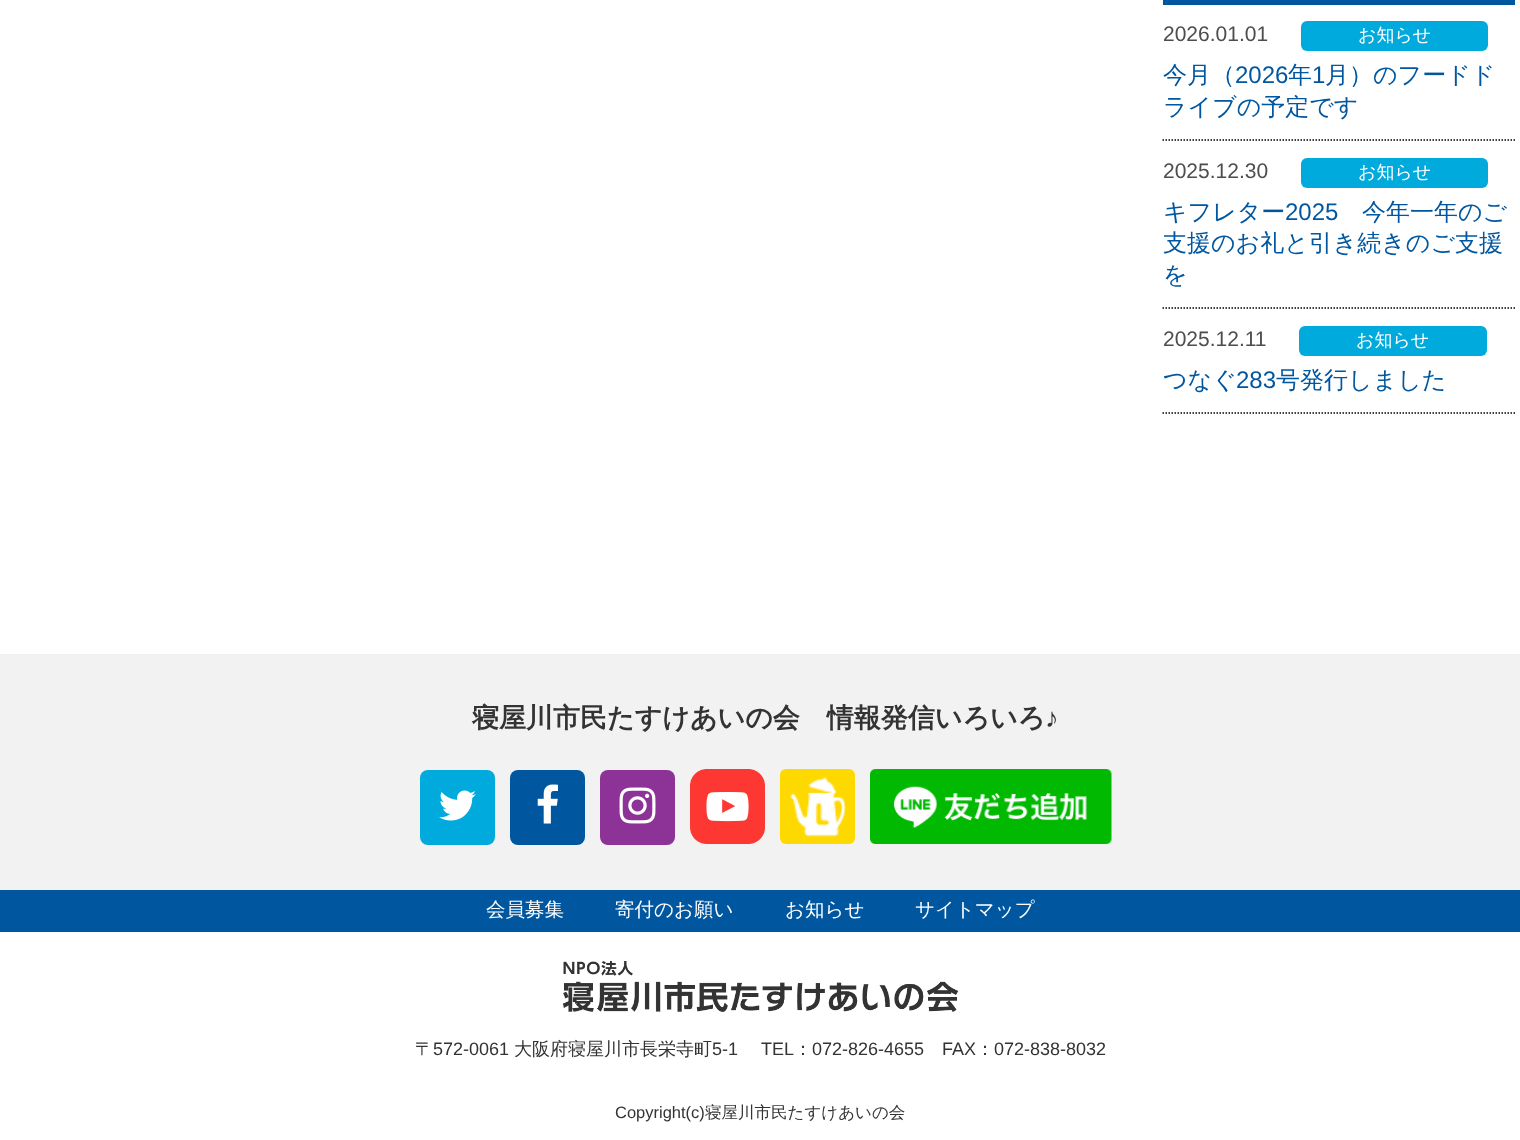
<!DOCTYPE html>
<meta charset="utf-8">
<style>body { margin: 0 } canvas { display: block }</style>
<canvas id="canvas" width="1520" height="1140"></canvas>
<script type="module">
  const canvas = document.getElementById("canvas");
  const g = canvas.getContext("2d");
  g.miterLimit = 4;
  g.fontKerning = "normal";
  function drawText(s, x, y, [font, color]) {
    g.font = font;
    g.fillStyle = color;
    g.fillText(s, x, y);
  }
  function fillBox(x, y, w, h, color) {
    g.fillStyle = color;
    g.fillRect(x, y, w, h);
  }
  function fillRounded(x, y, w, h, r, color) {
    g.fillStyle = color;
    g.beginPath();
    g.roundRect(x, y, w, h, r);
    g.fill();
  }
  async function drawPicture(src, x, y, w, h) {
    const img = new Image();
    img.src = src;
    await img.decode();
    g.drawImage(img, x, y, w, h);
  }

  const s1 = ["21px Liberation Sans", "#4D4D4D"];
  const s2 = ["500 18px WenQuanYi Zen Hei", "#FFFFFF"];
  const s3 = ["500 24px WenQuanYi Zen Hei", "#0057A0"];
  const s4 = ["24px Liberation Sans", "#0057A0"];
  const s5 = ["bold 27px WenQuanYi Zen Hei", "#333333"];
  const s6 = ["bold 27px Liberation Sans", "#333333"];
  const s7 = ["500 19.5px WenQuanYi Zen Hei", "#FFFFFF"];
  const s8 = ["500 18px WenQuanYi Zen Hei", "#333333"];
  const s9 = ["18px Liberation Sans", "#333333"];
  const s10 = ["16.5px Liberation Sans", "#333333"];
  const s11 = ["500 16.5px WenQuanYi Zen Hei", "#333333"];

  fillBox(0, 0, 1520, 1140, "#FFFFFF");
  fillBox(1163, 0, 352, 5, "#0057A0");
  g.beginPath();
  g.moveTo(1162.5, 140);
  g.lineTo(1515, 140);
  g.strokeStyle = "#000000";
  g.lineWidth = 1.5;
  g.setLineDash([1.5, 1.5]);
  g.stroke();
  drawText("2026.01.01", 1163, 41, s1);
  fillRounded(1301, 21, 187, 30, 6, "#00AADC");
  drawText("お知らせ", 1358, 41, s2);
  drawText("今月（", 1163, 83, s3);
  drawText("2026", 1235, 83, s4);
  drawText("年", 1288, 83, s3);
  drawText("1", 1312, 83, s4);
  drawText("月）のフードド", 1325, 83, s3);
  drawText("ライブの予定です", 1163, 115, s3);
  g.beginPath();
  g.moveTo(1162.5, 308);
  g.lineTo(1515, 308);
  g.stroke();
  drawText("2025.12.30", 1163, 178, s1);
  fillRounded(1301, 158, 187, 30, 6, "#00AADC");
  drawText("お知らせ", 1358, 178, s2);
  drawText("キフレター", 1163, 220, s3);
  drawText("2025", 1285, 220, s4);
  drawText("今年一年のご", 1362, 220, s3);
  drawText("支援のお礼と引き続きのご支援", 1163, 251, s3);
  drawText("を", 1163, 283, s3);
  g.beginPath();
  g.moveTo(1162.5, 413);
  g.lineTo(1515, 413);
  g.stroke();
  drawText("2025.12.11", 1163, 346, s1);
  fillRounded(1299, 326, 188, 30, 6, "#00AADC");
  drawText("お知らせ", 1356, 346, s2);
  drawText("つなぐ", 1163, 388, s3);
  drawText("283", 1236, 388, s4);
  drawText("号発行しました", 1276, 388, s3);
  fillBox(0, 654, 1520, 236, "#F2F2F2");
  drawText("寝屋川市⺠たすけあいの会　情報発信いろいろ", 472, 727, s5);
  drawText("♪", 1045, 727, s6);
  fillRounded(420, 770, 75, 75, 8, "#00AADC");
  await drawPicture("pic1.png", 439, 790, 37, 31);
  fillRounded(510, 770, 75, 75, 8, "#0057A0");
  await drawPicture("pic2.png", 537, 784, 21, 40);
  fillRounded(600, 770, 75, 75, 8, "#8D3297");
  await drawPicture("pic3.png", 619, 787, 37, 37);
  await drawPicture("pic4.png", 690, 769, 75, 75);
  await drawPicture("pic5.png", 780, 769, 75, 75);
  await drawPicture("pic6.png", 870, 769, 242, 75);
  fillBox(0, 890, 1520, 42, "#0057A0");
  drawText("会員募集", 486, 916, s7);
  drawText("寄付のお願い", 615, 916, s7);
  drawText("お知らせ", 785, 916, s7);
  drawText("サイトマップ", 915, 916, s7);
  await drawPicture("pic7.png", 563, 961, 396, 51);
  drawText("〒", 415, 1055, s8);
  drawText("572-0061", 433, 1055, s9);
  drawText("⼤阪府寝屋川市⻑栄寺町", 514, 1055, s8);
  drawText("5-1", 712, 1055, s9);
  drawText("TEL", 761, 1055, s9);
  drawText("：", 794, 1055, s8);
  drawText("072-826-4655", 812, 1055, s9);
  drawText("FAX", 942, 1055, s9);
  drawText("：", 976, 1055, s8);
  drawText("072-838-8032", 994, 1055, s9);
  drawText("Copyright(c)", 615, 1118, s10);
  drawText("寝屋川市民たすけあいの会", 705, 1118, s11);
</script>
